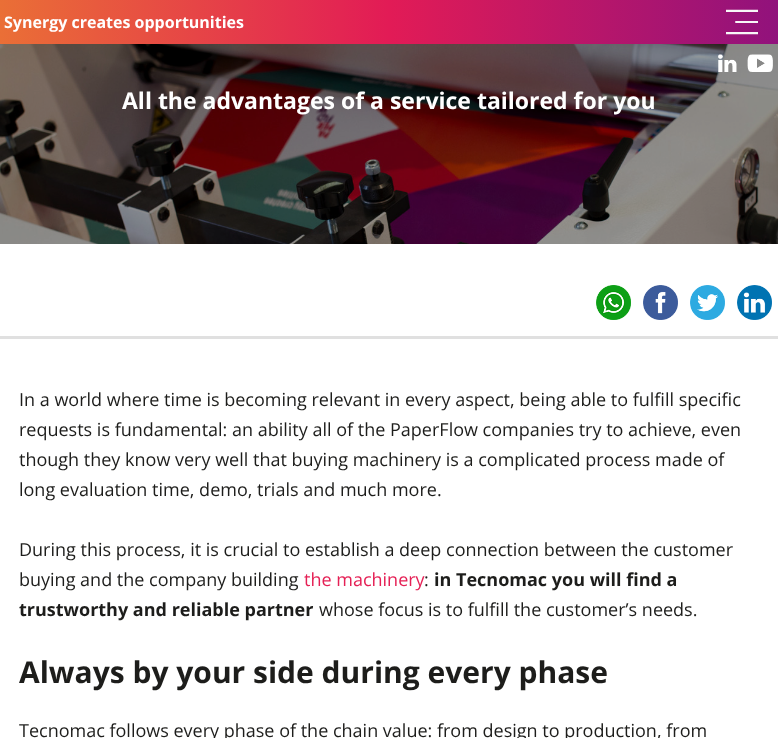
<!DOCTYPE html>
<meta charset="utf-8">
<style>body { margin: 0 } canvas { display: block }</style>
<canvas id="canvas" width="778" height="738"></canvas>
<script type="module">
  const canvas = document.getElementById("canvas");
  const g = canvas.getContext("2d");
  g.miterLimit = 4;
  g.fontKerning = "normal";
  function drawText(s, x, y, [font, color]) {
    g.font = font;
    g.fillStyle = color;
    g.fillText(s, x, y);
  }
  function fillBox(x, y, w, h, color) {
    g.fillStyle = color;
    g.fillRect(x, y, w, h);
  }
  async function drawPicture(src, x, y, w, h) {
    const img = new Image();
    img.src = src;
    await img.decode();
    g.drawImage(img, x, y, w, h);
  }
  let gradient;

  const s1 = ["bold 16px Open Sans", "#FFFFFF"];
  const s2 = ["bold 23px Open Sans", "#FFFFFF"];
  const s3 = ["18px Open Sans", "#1D1D1B"];
  const s4 = ["18px Open Sans", "#E52055"];
  const s5 = ["bold 18px Open Sans", "#1D1D1B"];
  const s6 = ["bold 30px Open Sans", "#1D1D1B"];

  fillBox(0, 0, 778, 738, "#FFFFFF");
  gradient = g.createLinearGradient(0, 22, 778, 22);
  gradient.addColorStop(0, "#EA6F36");
  gradient.addColorStop(0.5, "#E21B56");
  gradient.addColorStop(1, "#91127C");
  g.fillStyle = gradient;
  g.fillRect(0, 0, 778, 44);
  drawText("Synergy creates opportunities", 4, 28, s1);
  await drawPicture("pic1.png", 726, 9, 32, 26);
  await drawPicture("pic2.png", 0, 44, 778, 200);
  await drawPicture("pic3.png", 718, 54, 19, 18);
  await drawPicture("pic4.png", 747, 54, 26, 18);
  drawText("All the advantages of a service tailored for you", 122, 109, s2);
  fillBox(0, 336, 778, 3, "#E0E0E0");
  await drawPicture("pic5.png", 596, 285, 35, 35);
  await drawPicture("pic6.png", 643, 285, 35, 35);
  await drawPicture("pic7.png", 690, 285, 35, 35);
  await drawPicture("pic8.png", 737, 285, 35, 35);
  drawText("In a world where time is becoming relevant in every aspect, being able to fulfill specific", 19, 406, s3);
  drawText("requests is fundamental: an ability all of the PaperFlow companies try to achieve, even", 19, 436, s3);
  drawText("though they know very well that buying machinery is a complicated process made of", 19, 466, s3);
  drawText("long evaluation time, demo, trials and much more.", 19, 496, s3);
  drawText("During this process, it is crucial to establish a deep connection between the customer", 19, 556, s3);
  drawText("buying and the company building", 19, 586, s3);
  drawText("the machinery", 304, 586, s4);
  drawText(":", 424, 586, s3);
  drawText("in Tecnomac you will find a", 434, 586, s5);
  drawText("trustworthy and reliable partner", 19, 616, s5);
  drawText("whose focus is to fulfill the customer’s needs.", 319, 616, s3);
  drawText("Always by your side during every phase", 19, 683, s6);
  drawText("Tecnomac follows every phase of the chain value: from design to production, from", 19, 737, s3);
</script>
